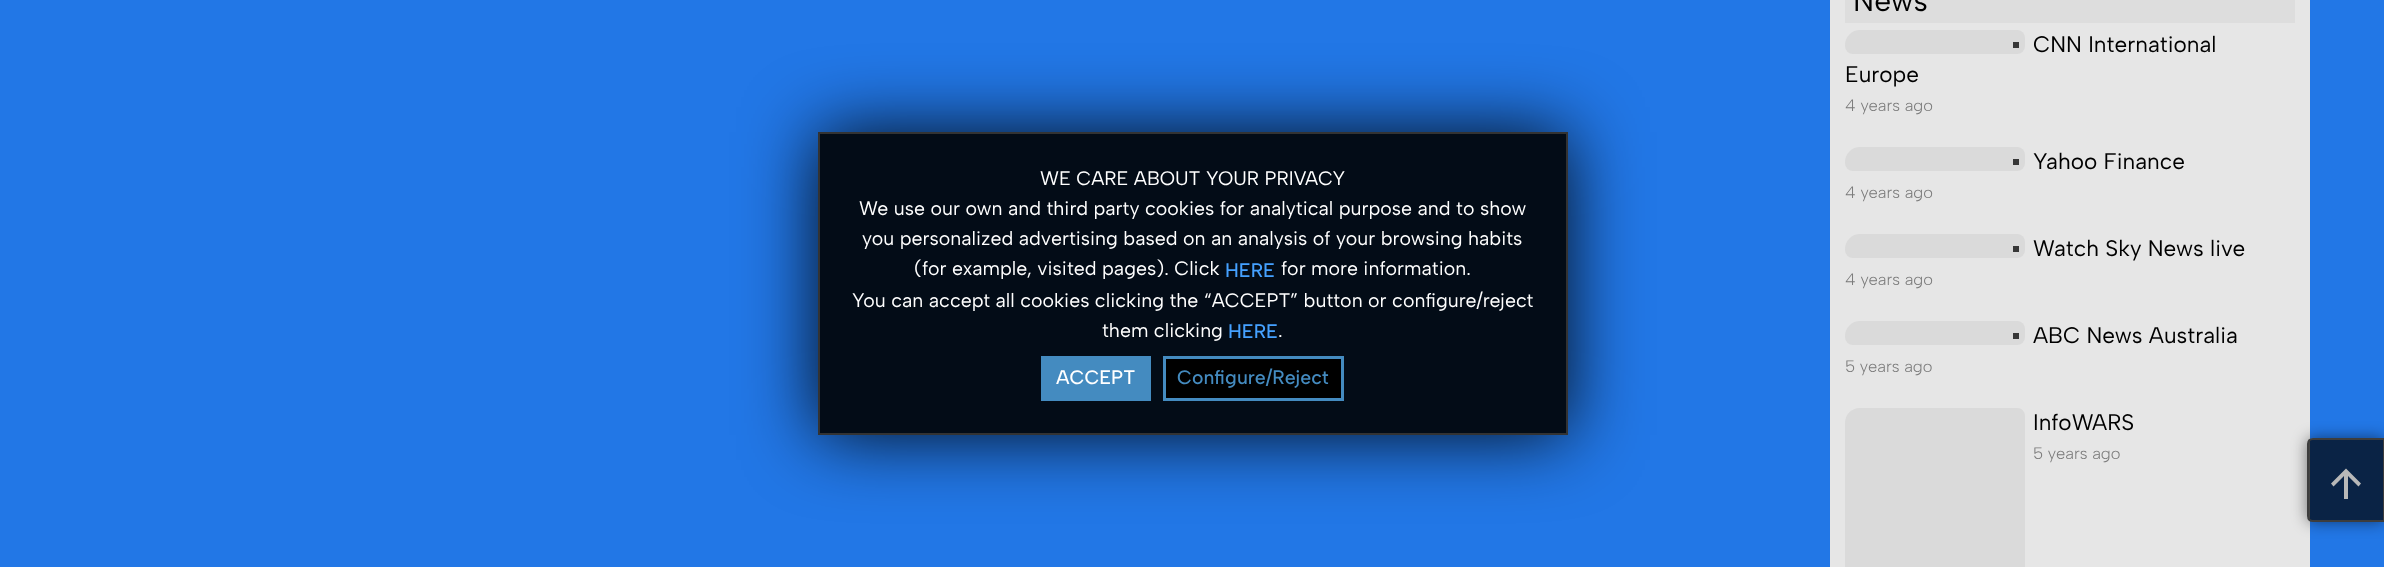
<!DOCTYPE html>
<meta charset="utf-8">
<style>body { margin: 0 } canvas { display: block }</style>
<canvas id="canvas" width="2384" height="567"></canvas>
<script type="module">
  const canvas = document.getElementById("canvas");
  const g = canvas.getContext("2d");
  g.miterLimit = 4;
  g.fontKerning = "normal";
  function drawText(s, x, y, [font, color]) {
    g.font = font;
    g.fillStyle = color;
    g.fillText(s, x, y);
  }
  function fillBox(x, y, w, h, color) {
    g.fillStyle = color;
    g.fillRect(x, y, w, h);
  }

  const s1 = ["19.5px Albert Sans", "#FFFFFF"];
  const s2 = ["500 19.5px Albert Sans", "#45A1FF"];
  const s3 = ["500 19.5px Albert Sans", "#FFFFFF"];
  const s4 = ["500 19.5px Albert Sans", "#448BC0"];
  const s5 = ["30px Albert Sans", "#000000"];
  const s6 = ["22.5px Albert Sans", "#000000"];
  const s7 = ["300 16.5px Albert Sans", "#7A7A7A"];

  fillBox(0, 0, 2384, 567, "#2277E6");
  g.save();
  g.beginPath();
  g.moveTo(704, 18);
  g.lineTo(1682, 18);
  g.lineTo(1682, 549);
  g.lineTo(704, 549);
  g.closePath();
  g.moveTo(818, 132);
  g.lineTo(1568, 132);
  g.lineTo(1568, 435);
  g.lineTo(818, 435);
  g.closePath();
  g.clip("evenodd");
  g.fillStyle = "rgba(0, 0, 0, 0.9)";
  g.filter = "blur(37.5px)";
  g.beginPath();
  g.rect(818, 132, 750, 303);
  g.fill();
  g.filter = "none";
  g.restore();
  g.fillStyle = "rgba(0, 0, 0, 0.9)";
  g.beginPath();
  g.rect(819, 133, 748, 301);
  g.fill();
  g.strokeStyle = "#333333";
  g.lineWidth = 2;
  g.stroke();
  drawText("WE CARE ABOUT YOUR PRIVACY", 1040, 185, s1);
  drawText("We use our own and third party cookies for analytical purpose and to show", 859, 215, s1);
  drawText("you personalized advertising based on an analysis of your browsing habits", 862, 245, s1);
  drawText("(for example, visited pages). Click", 914, 275, s1);
  drawText("HERE", 1225, 277, s2);
  drawText("for more information.", 1281, 275, s1);
  drawText("You can accept all cookies clicking the “ACCEPT” button or configure/reject", 852, 307, s1);
  drawText("them clicking", 1102, 337, s1);
  drawText("HERE", 1228, 338, s2);
  drawText(".", 1278, 337, s1);
  fillBox(1041, 356, 110, 45, "#448BC0");
  drawText("ACCEPT", 1056, 384, s3);
  g.fillStyle = "#000000";
  g.beginPath();
  g.rect(1164.5, 357.5, 178, 42);
  g.fill();
  g.strokeStyle = "#448BC0";
  g.lineWidth = 3;
  g.stroke();
  drawText("Configure/Reject", 1177, 384, s4);
  fillBox(1830, 0, 480, 567, "#E6E6E6");
  fillBox(1845, 0, 450, 23, "#DDDDDD");
  drawText("News", 1853, 11, s5);
  g.fillStyle = "#DADADA";
  g.beginPath();
  g.roundRect(1845, 30, 180, 24, [15, 8, 8, 8]);
  g.fill();
  fillBox(2013, 42, 6, 6, "#373737");
  drawText("CNN International", 2033, 52, s6);
  drawText("Europe", 1845, 82, s6);
  drawText("4 years ago", 1845, 111, s7);
  g.fillStyle = "#DADADA";
  g.beginPath();
  g.roundRect(1845, 147, 180, 24, [15, 8, 8, 8]);
  g.fill();
  fillBox(2013, 159, 6, 6, "#373737");
  drawText("Yahoo Finance", 2033, 169, s6);
  drawText("4 years ago", 1845, 198, s7);
  g.fillStyle = "#DADADA";
  g.beginPath();
  g.roundRect(1845, 234, 180, 24, [15, 8, 8, 8]);
  g.fill();
  fillBox(2013, 246, 6, 6, "#373737");
  drawText("Watch Sky News live", 2033, 256, s6);
  drawText("4 years ago", 1845, 285, s7);
  g.fillStyle = "#DADADA";
  g.beginPath();
  g.roundRect(1845, 321, 180, 24, [15, 8, 8, 8]);
  g.fill();
  fillBox(2013, 333, 6, 6, "#373737");
  drawText("ABC News Australia", 2033, 343, s6);
  drawText("5 years ago", 1845, 372, s7);
  g.fillStyle = "#DADADA";
  g.beginPath();
  g.moveTo(1860, 408);
  g.lineTo(2017, 408);
  g.bezierCurveTo(2021.5, 408, 2025, 411.5, 2025, 416);
  g.lineTo(2025, 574);
  g.bezierCurveTo(2025, 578.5, 2021.5, 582, 2017, 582);
  g.lineTo(1860, 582);
  g.bezierCurveTo(1851.5, 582, 1845, 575.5, 1845, 567);
  g.lineTo(1845, 423);
  g.bezierCurveTo(1845, 414.5, 1851.5, 408, 1860, 408);
  g.closePath();
  g.fill();
  drawText("InfoWARS", 2033, 430, s6);
  drawText("5 years ago", 2033, 459, s7);
  g.save();
  g.beginPath();
  g.moveTo(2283, 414);
  g.lineTo(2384, 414);
  g.lineTo(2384, 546);
  g.lineTo(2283, 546);
  g.closePath();
  g.moveTo(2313, 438);
  g.lineTo(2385, 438);
  g.lineTo(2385, 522);
  g.lineTo(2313, 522);
  g.bezierCurveTo(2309.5, 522, 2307, 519.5, 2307, 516);
  g.lineTo(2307, 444);
  g.bezierCurveTo(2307, 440.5, 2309.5, 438, 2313, 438);
  g.closePath();
  g.clip("evenodd");
  g.fillStyle = "rgba(0, 0, 0, 0.5)";
  g.filter = "blur(7.5px)";
  g.beginPath();
  g.roundRect(2307, 438, 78, 84, 6);
  g.fill();
  g.filter = "none";
  g.restore();
  g.fillStyle = "rgba(0, 0, 0, 0.7)";
  g.beginPath();
  g.moveTo(2313, 439);
  g.lineTo(2384, 439);
  g.lineTo(2384, 521);
  g.lineTo(2313, 521);
  g.bezierCurveTo(2310, 521, 2308, 519, 2308, 516);
  g.lineTo(2308, 444);
  g.bezierCurveTo(2308, 441, 2310, 439, 2313, 439);
  g.closePath();
  g.fill();
  g.strokeStyle = "#3D3D3D";
  g.lineWidth = 2;
  g.stroke();
  g.fillStyle = "#B8B8B8";
  g.beginPath();
  g.moveTo(2331, 483.5);
  g.lineTo(2346, 468.5);
  g.lineTo(2361, 483.5);
  g.lineTo(2358.5, 486.5);
  g.lineTo(2348, 476);
  g.lineTo(2348, 499);
  g.lineTo(2344, 499);
  g.lineTo(2344, 476);
  g.lineTo(2333.5, 486.5);
  g.closePath();
  g.fill();
</script>
